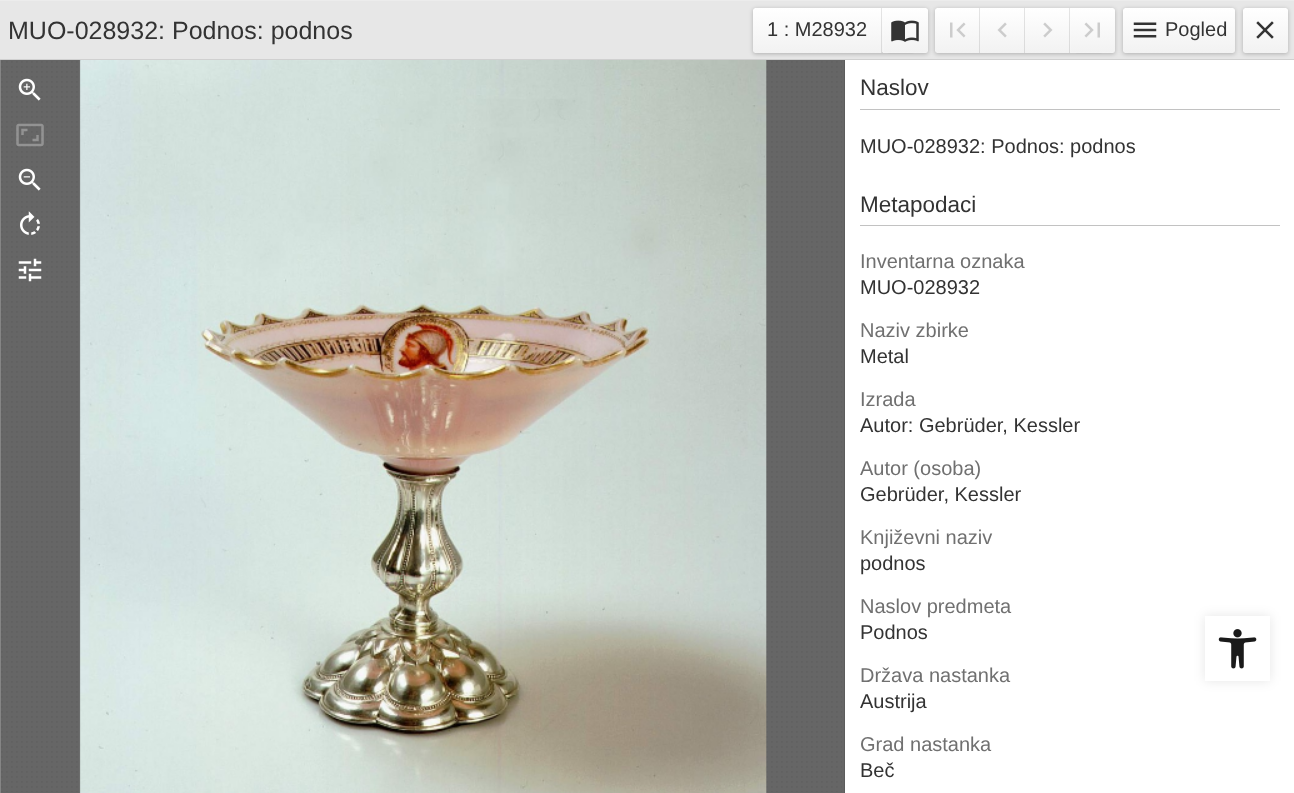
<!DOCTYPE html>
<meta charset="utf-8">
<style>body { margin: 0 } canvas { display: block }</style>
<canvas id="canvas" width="1294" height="793"></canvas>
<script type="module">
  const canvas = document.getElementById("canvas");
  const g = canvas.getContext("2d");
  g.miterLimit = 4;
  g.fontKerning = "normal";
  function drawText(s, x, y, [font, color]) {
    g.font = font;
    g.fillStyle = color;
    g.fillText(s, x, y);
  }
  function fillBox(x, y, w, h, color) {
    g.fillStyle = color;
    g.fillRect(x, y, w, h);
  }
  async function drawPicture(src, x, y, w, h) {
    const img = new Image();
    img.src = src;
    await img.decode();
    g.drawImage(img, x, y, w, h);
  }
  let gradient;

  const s1 = ["25px Liberation Sans", "#333333"];
  const s2 = ["20px Liberation Sans", "#333333"];
  const s3 = ["22.5px Liberation Sans", "#333333"];
  const s4 = ["20px Liberation Sans", "#707070"];

  fillBox(0, 0, 1294, 793, "#FFFFFF");
  fillBox(0, 1, 1294, 58, "#E7E7E7");
  fillBox(0, 59, 1294, 1, "#D0D0D0");
  fillBox(0, 0, 1294, 1, "#ECECEC");
  drawText("MUO-028932: Podnos: podnos", 8, 39, s1);
  g.fillStyle = "rgba(0, 0, 0, 0.24)";
  g.filter = "blur(2px)";
  g.beginPath();
  g.roundRect(753, 9, 175, 45, 2.5);
  g.fill();
  g.filter = "none";
  g.fillStyle = "rgba(0, 0, 0, 0.08)";
  g.filter = "blur(0.5px)";
  g.beginPath();
  g.roundRect(753, 8, 175, 45, 2.5);
  g.fill();
  g.filter = "none";
  gradient = g.createLinearGradient(818, 7.5, 818, 53);
  gradient.addColorStop(0, "#FFFFFF");
  gradient.addColorStop(1, "#F2F2F2");
  g.fillStyle = gradient;
  g.beginPath();
  g.roundRect(753, 8, 130, 45, [2.5, 0, 0, 2.5]);
  g.fill();
  drawText("1 : M28932", 767, 36, s2);
  g.fillStyle = "rgba(0, 0, 0, 0.1)";
  g.beginPath();
  g.moveTo(881, 8);
  g.lineTo(881, 53);
  g.bezierCurveTo(886, 53, 923, 54, 925, 52);
  g.lineTo(882, 52);
  g.lineTo(882, 8);
  g.closePath();
  g.fill();
  gradient = g.createLinearGradient(905, 7.5, 905, 53);
  gradient.addColorStop(0, "#FFFFFF");
  gradient.addColorStop(1, "#F2F2F2");
  g.fillStyle = gradient;
  g.beginPath();
  g.roundRect(883, 8, 45, 45, [0, 2.5, 2.5, 0]);
  g.fill();
  g.fillStyle = "rgba(255, 255, 255, 0.2)";
  g.beginPath();
  g.moveTo(883, 8);
  g.lineTo(883, 53);
  g.lineTo(926, 53);
  g.lineTo(928, 52);
  g.lineTo(884, 52);
  g.lineTo(884, 8);
  g.closePath();
  g.fill();
  await drawPicture("pic1.png", 891, 20, 28, 22);
  g.fillStyle = "rgba(0, 0, 0, 0.24)";
  g.filter = "blur(2px)";
  g.beginPath();
  g.roundRect(935, 9, 180, 45, 2.5);
  g.fill();
  g.filter = "none";
  g.fillStyle = "rgba(0, 0, 0, 0.08)";
  g.filter = "blur(0.5px)";
  g.beginPath();
  g.roundRect(935, 8, 180, 45, 2.5);
  g.fill();
  g.filter = "none";
  gradient = g.createLinearGradient(958, 7.5, 958, 53);
  gradient.addColorStop(0, "#FFFFFF");
  gradient.addColorStop(1, "#F2F2F2");
  g.fillStyle = gradient;
  g.beginPath();
  g.roundRect(935, 8, 45, 45, [2.5, 0, 0, 2.5]);
  g.fill();
  await drawPicture("pic2.png", 950, 22, 16, 16);
  g.fillStyle = "rgba(0, 0, 0, 0.1)";
  g.beginPath();
  g.moveTo(979, 8);
  g.lineTo(979, 53);
  g.lineTo(1024, 53);
  g.lineTo(1024, 52);
  g.lineTo(980, 52);
  g.lineTo(980, 8);
  g.closePath();
  g.fill();
  gradient = g.createLinearGradient(1003, 7.5, 1003, 53);
  gradient.addColorStop(0, "#FFFFFF");
  gradient.addColorStop(1, "#F2F2F2");
  g.fillStyle = gradient;
  g.fillRect(980, 8, 45, 45);
  await drawPicture("pic3.png", 997, 22, 10, 16);
  g.fillStyle = "rgba(0, 0, 0, 0.1)";
  g.beginPath();
  g.moveTo(1024, 8);
  g.lineTo(1024, 53);
  g.lineTo(1069, 53);
  g.lineTo(1069, 52);
  g.lineTo(1025, 52);
  g.lineTo(1025, 8);
  g.closePath();
  g.fill();
  gradient = g.createLinearGradient(1048, 7.5, 1048, 53);
  gradient.addColorStop(0, "#FFFFFF");
  gradient.addColorStop(1, "#F2F2F2");
  g.fillStyle = gradient;
  g.fillRect(1025, 8, 45, 45);
  await drawPicture("pic4.png", 1043, 22, 10, 16);
  g.fillStyle = "rgba(0, 0, 0, 0.1)";
  g.beginPath();
  g.moveTo(1069, 8);
  g.lineTo(1069, 53);
  g.bezierCurveTo(1074, 53, 1111, 54, 1113, 52);
  g.lineTo(1070, 52);
  g.lineTo(1070, 8);
  g.closePath();
  g.fill();
  gradient = g.createLinearGradient(1093, 7.5, 1093, 53);
  gradient.addColorStop(0, "#FFFFFF");
  gradient.addColorStop(1, "#F2F2F2");
  g.fillStyle = gradient;
  g.beginPath();
  g.roundRect(1070, 8, 45, 45, [0, 2.5, 2.5, 0]);
  g.fill();
  g.fillStyle = "rgba(255, 255, 255, 0.2)";
  g.beginPath();
  g.moveTo(1070, 8);
  g.lineTo(1070, 53);
  g.lineTo(1113, 53);
  g.lineTo(1115, 52);
  g.lineTo(1071, 52);
  g.lineTo(1071, 8);
  g.closePath();
  g.fill();
  await drawPicture("pic5.png", 1084, 22, 16, 16);
  g.fillStyle = "rgba(0, 0, 0, 0.24)";
  g.filter = "blur(2px)";
  g.beginPath();
  g.roundRect(1123, 9, 112, 45, 2.5);
  g.fill();
  g.filter = "none";
  g.fillStyle = "rgba(0, 0, 0, 0.08)";
  g.filter = "blur(0.5px)";
  g.beginPath();
  g.roundRect(1123, 8, 112, 45, 2.5);
  g.fill();
  g.filter = "none";
  gradient = g.createLinearGradient(1179, 7.5, 1179, 53);
  gradient.addColorStop(0, "#FFFFFF");
  gradient.addColorStop(1, "#F2F2F2");
  g.fillStyle = gradient;
  g.beginPath();
  g.roundRect(1123, 8, 112, 45, 2.5);
  g.fill();
  await drawPicture("pic6.png", 1133, 22, 24, 16);
  drawText("Pogled", 1165, 36, s2);
  g.fillStyle = "rgba(0, 0, 0, 0.24)";
  g.filter = "blur(2px)";
  g.beginPath();
  g.roundRect(1243, 9, 45, 45, 2.5);
  g.fill();
  g.filter = "none";
  g.fillStyle = "rgba(0, 0, 0, 0.08)";
  g.filter = "blur(0.5px)";
  g.beginPath();
  g.roundRect(1243, 8, 45, 45, 2.5);
  g.fill();
  g.filter = "none";
  gradient = g.createLinearGradient(1265, 7.5, 1265, 53);
  gradient.addColorStop(0, "#FFFFFF");
  gradient.addColorStop(1, "#F2F2F2");
  g.fillStyle = gradient;
  g.beginPath();
  g.roundRect(1243, 8, 45, 45, 2.5);
  g.fill();
  await drawPicture("pic7.png", 1256, 21, 18, 18);
  fillBox(1, 60, 843, 733, "#666666");
  await drawPicture("pic8.png", 1, 61, 841, 731);
  fillBox(0, 60, 1, 733, "#858585");
  await drawPicture("pic9.png", 18, 78, 23, 23);
  await drawPicture("pic10.png", 16, 123, 28, 24);
  await drawPicture("pic11.png", 18, 168, 23, 23);
  await drawPicture("pic12.png", 20, 211, 20, 24);
  await drawPicture("pic13.png", 18, 258, 24, 24);
  await drawPicture("pic14.png", 79, 60, 688, 733);
  g.fillStyle = "#5C5C5C";
  g.beginPath();
  g.moveTo(844, 60);
  g.lineTo(844, 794);
  g.lineTo(1294, 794);
  g.lineTo(845, 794);
  g.lineTo(845, 60);
  g.closePath();
  g.fill();
  fillBox(860, 109, 420, 1, "#C2C2C2");
  drawText("Naslov", 860, 95, s3);
  drawText("MUO-028932: Podnos: podnos", 860, 153, s2);
  fillBox(860, 225, 420, 1, "#C2C2C2");
  drawText("Metapodaci", 860, 212, s3);
  drawText("Inventarna oznaka", 860, 268, s4);
  drawText("MUO-028932", 860, 294, s2);
  drawText("Naziv zbirke", 860, 337, s4);
  drawText("Metal", 860, 363, s2);
  drawText("Izrada", 860, 406, s4);
  drawText("Autor: Gebrüder, Kessler", 860, 432, s2);
  drawText("Autor (osoba)", 860, 475, s4);
  drawText("Gebrüder, Kessler", 860, 501, s2);
  drawText("Književni naziv", 860, 544, s4);
  drawText("podnos", 860, 570, s2);
  drawText("Naslov predmeta", 860, 613, s4);
  drawText("Podnos", 860, 639, s2);
  drawText("Država nastanka", 860, 682, s4);
  drawText("Austrija", 860, 708, s2);
  drawText("Grad nastanka", 860, 751, s4);
  drawText("Beč", 860, 777, s2);
  g.fillStyle = "rgba(0, 0, 0, 0.1)";
  g.filter = "blur(6px)";
  g.beginPath();
  g.rect(1205, 616, 65, 65);
  g.fill();
  g.filter = "none";
  fillBox(1205, 616, 65, 65, "#FFFFFF");
  await drawPicture("pic15.png", 1218, 629, 39, 40);
</script>
